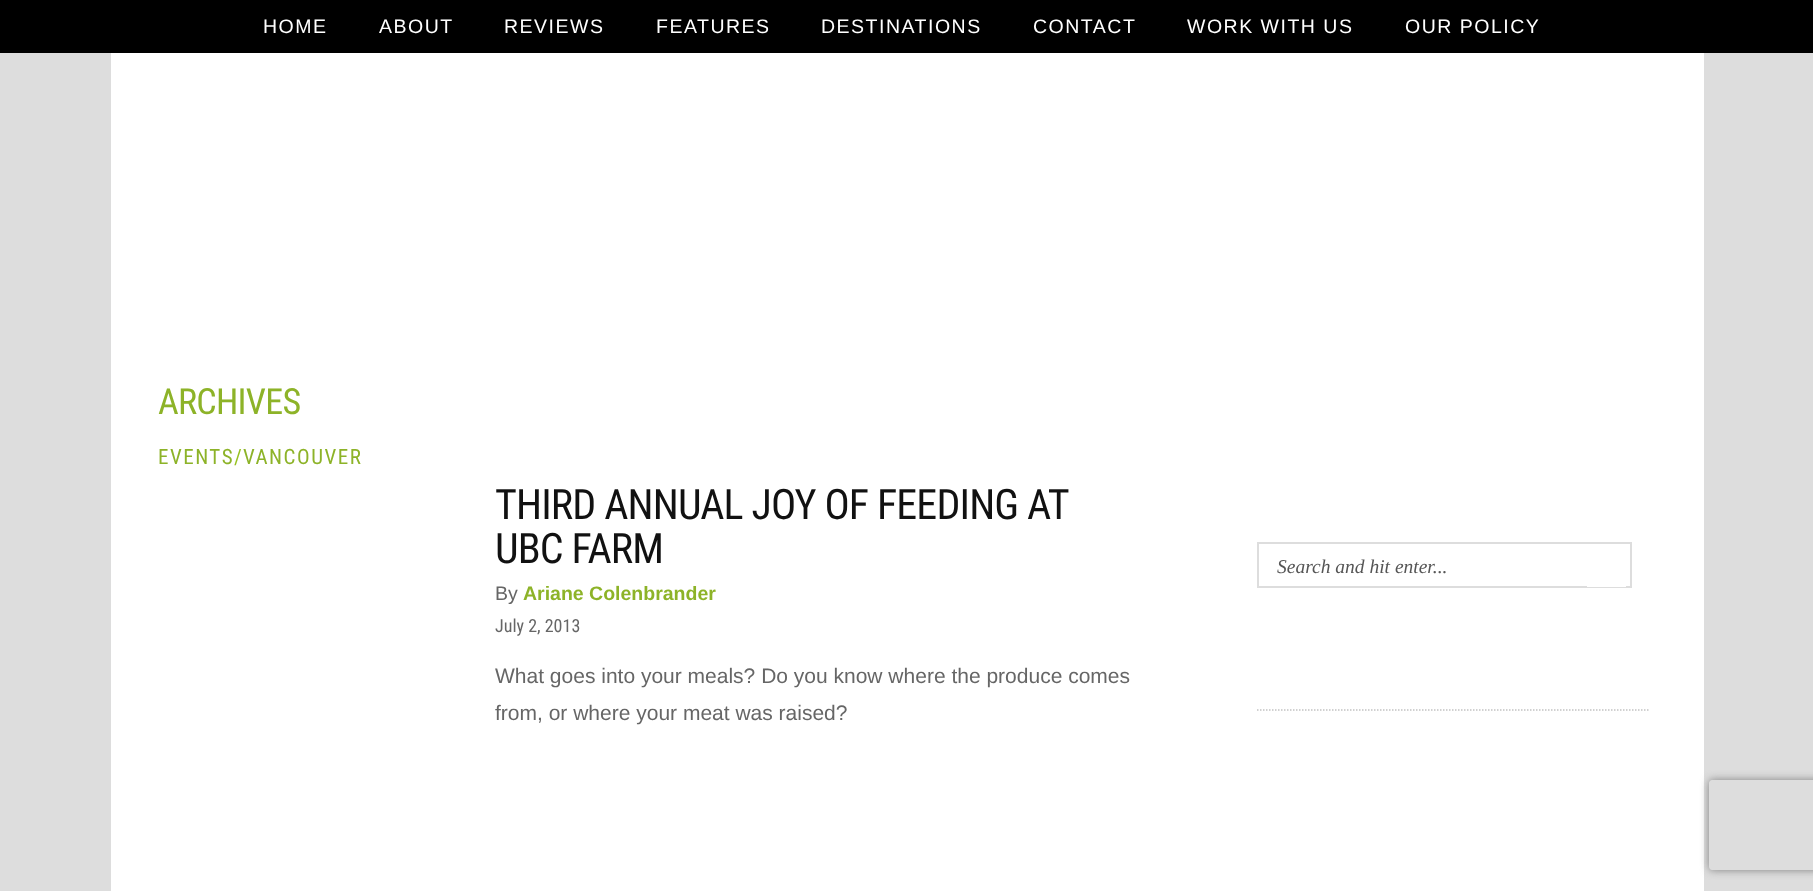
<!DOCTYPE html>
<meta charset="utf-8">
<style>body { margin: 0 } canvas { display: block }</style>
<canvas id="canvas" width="1813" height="891"></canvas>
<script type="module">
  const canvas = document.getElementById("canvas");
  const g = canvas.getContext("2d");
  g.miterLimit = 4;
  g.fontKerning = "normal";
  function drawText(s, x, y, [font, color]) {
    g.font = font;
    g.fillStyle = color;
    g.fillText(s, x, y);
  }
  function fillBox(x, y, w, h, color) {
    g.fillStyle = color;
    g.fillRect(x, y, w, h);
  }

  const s1 = ["19.5px Liberation Sans", "#FFFFFF"];
  const s2 = ["36px Roboto Condensed", "#8DB328"];
  const s3 = ["21px Roboto Condensed", "#8DB328"];
  const s4 = ["21px Roboto Condensed", "#97C220"];
  const s5 = ["42px Roboto Condensed", "#111111"];
  const s6 = ["19.5px Liberation Sans", "#666666"];
  const s7 = ["bold 19.5px Liberation Sans", "#8DB328"];
  const s8 = ["18px Roboto Condensed", "#666666"];
  const s9 = ["21px Liberation Sans", "#666666"];
  const s10 = ["italic 19.5px Liberation Serif", "#555555"];

  fillBox(0, 0, 1813, 891, "#DDDDDD");
  fillBox(0, 0, 1813, 53, "#000000");
  g.letterSpacing = "1.5px";
  drawText("HOME", 263, 33, s1);
  drawText("ABOUT", 379, 33, s1);
  drawText("REVIEWS", 504, 33, s1);
  drawText("FEATURES", 656, 33, s1);
  drawText("DESTINATIONS", 821, 33, s1);
  drawText("CONTACT", 1033, 33, s1);
  drawText("WORK WITH US", 1187, 33, s1);
  drawText("OUR POLICY", 1405, 33, s1);
  fillBox(111, 53, 1593, 838, "#FFFFFF");
  g.letterSpacing = "-0.75px";
  drawText("ARCHIVES", 158, 414, s2);
  g.letterSpacing = "1.5px";
  drawText("EVENTS", 158, 464, s3);
  drawText("/", 234, 464, s4);
  drawText("VANCOUVER", 243, 464, s3);
  g.letterSpacing = "-0.85px";
  drawText("THIRD ANNUAL JOY OF FEEDING AT", 495, 519, s5);
  drawText("UBC FARM", 495, 563, s5);
  g.letterSpacing = "0px";
  drawText("By", 495, 600, s6);
  drawText("Ariane Colenbrander", 523, 600, s7);
  drawText("July 2, 2013", 495, 632, s8);
  drawText("What goes into your meals? Do you know where the produce comes", 495, 683, s9);
  drawText("from, or where your meat was raised?", 495, 720, s9);
  g.strokeStyle = "#DDDDDD";
  g.lineWidth = 2;
  g.strokeRect(1258, 543, 373, 44);
  drawText("Search and hit enter...", 1277, 573, s10);
  fillBox(1587, 586, 39, 1, "#FFFFFF");
  g.beginPath();
  g.moveTo(1257, 710);
  g.lineTo(1650, 710);
  g.strokeStyle = "#C2C2C2";
  g.lineWidth = 1.5;
  g.setLineDash([1.5, 1.5]);
  g.stroke();
  g.save();
  g.beginPath();
  g.moveTo(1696, 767);
  g.lineTo(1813, 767);
  g.lineTo(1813, 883);
  g.lineTo(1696, 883);
  g.closePath();
  g.moveTo(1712, 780);
  g.lineTo(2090, 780);
  g.bezierCurveTo(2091.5, 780, 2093, 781.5, 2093, 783);
  g.lineTo(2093, 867);
  g.bezierCurveTo(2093, 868.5, 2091.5, 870, 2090, 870);
  g.lineTo(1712, 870);
  g.bezierCurveTo(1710.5, 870, 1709, 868.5, 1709, 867);
  g.lineTo(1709, 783);
  g.bezierCurveTo(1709, 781.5, 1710.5, 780, 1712, 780);
  g.closePath();
  g.clip("evenodd");
  g.fillStyle = "#808080";
  g.filter = "blur(4px)";
  g.beginPath();
  g.roundRect(1709, 780, 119, 90, 3);
  g.fill();
  g.filter = "none";
  g.restore();
</script>
